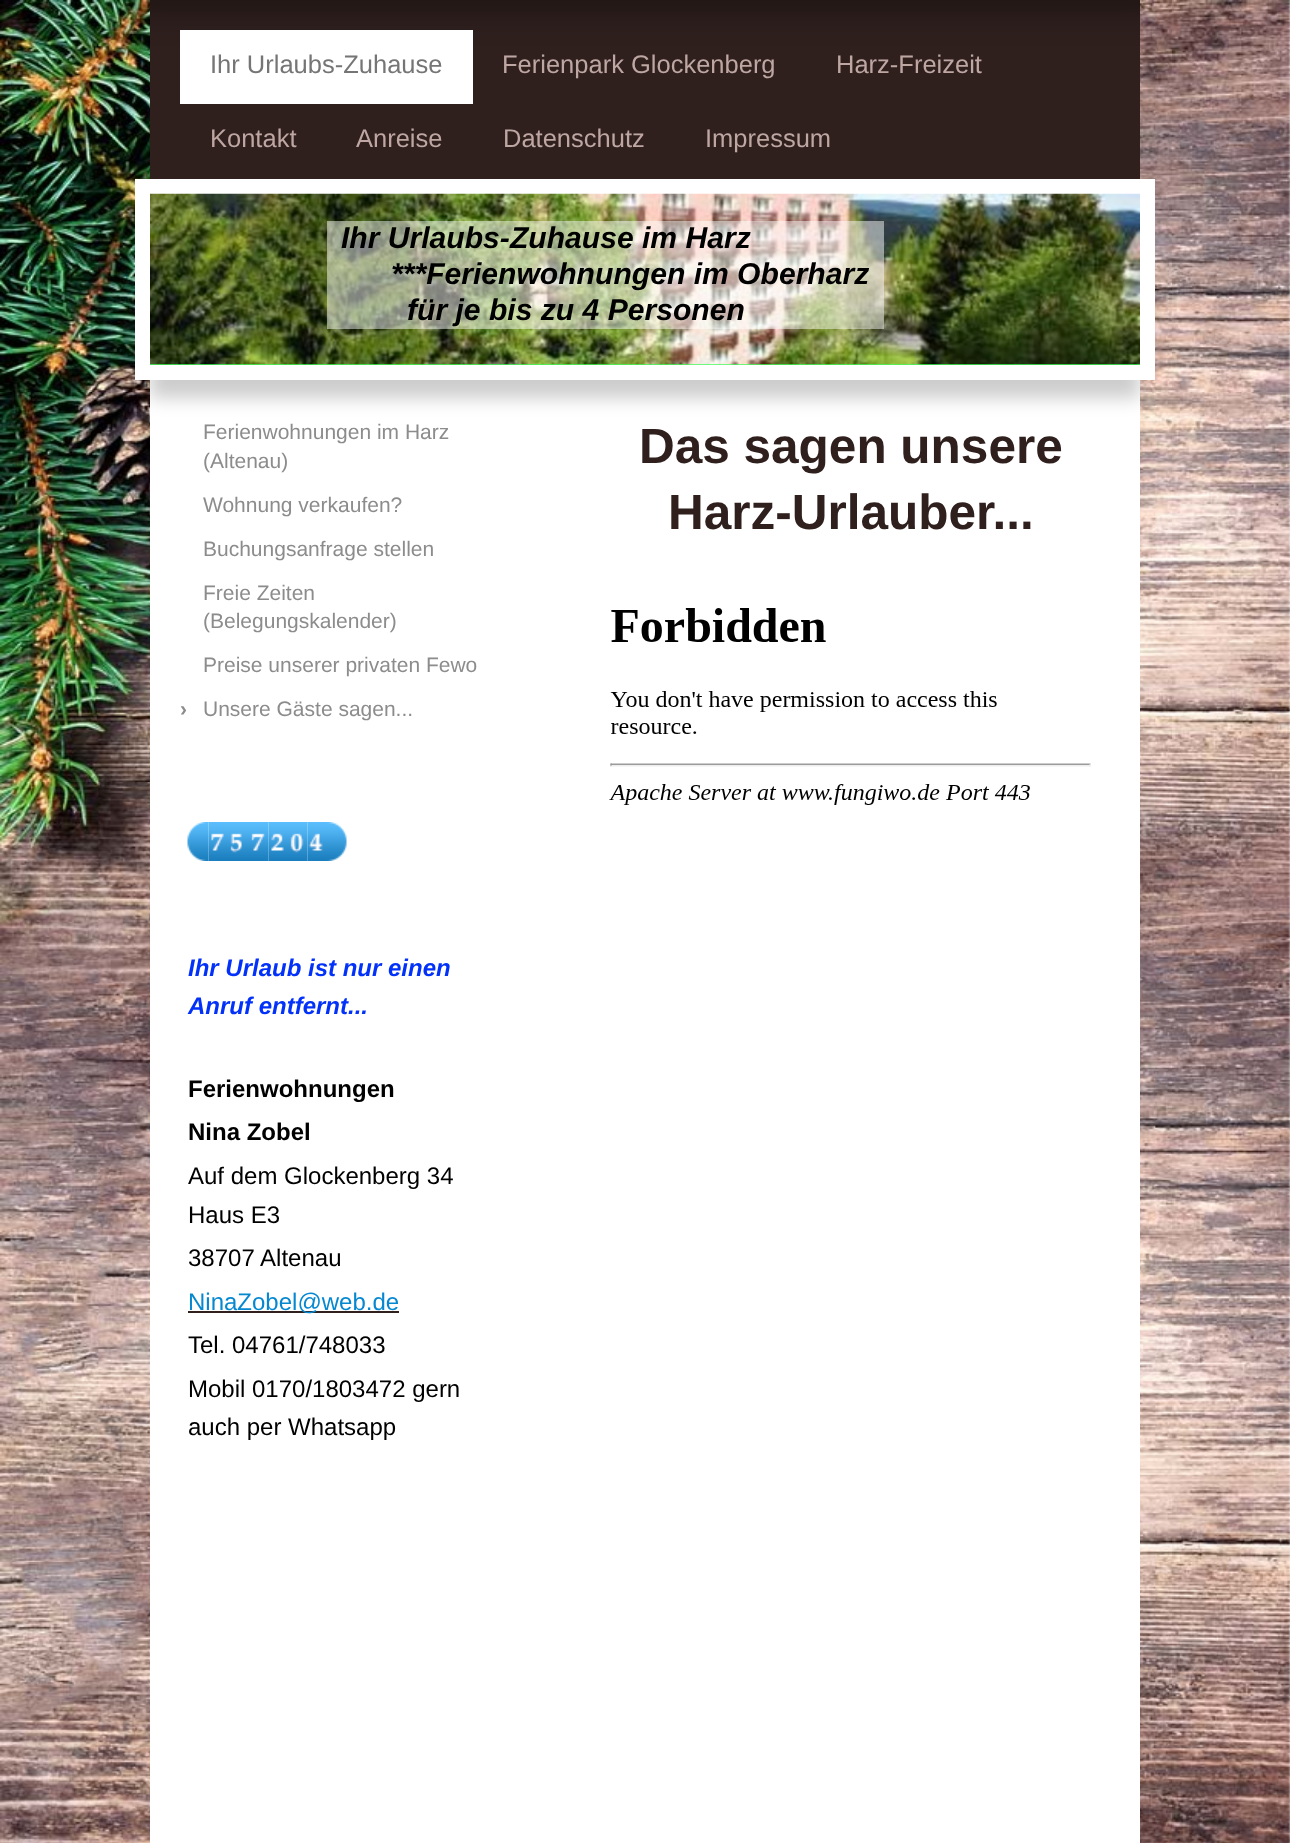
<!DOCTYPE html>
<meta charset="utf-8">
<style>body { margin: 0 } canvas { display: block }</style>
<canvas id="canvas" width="1290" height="1843"></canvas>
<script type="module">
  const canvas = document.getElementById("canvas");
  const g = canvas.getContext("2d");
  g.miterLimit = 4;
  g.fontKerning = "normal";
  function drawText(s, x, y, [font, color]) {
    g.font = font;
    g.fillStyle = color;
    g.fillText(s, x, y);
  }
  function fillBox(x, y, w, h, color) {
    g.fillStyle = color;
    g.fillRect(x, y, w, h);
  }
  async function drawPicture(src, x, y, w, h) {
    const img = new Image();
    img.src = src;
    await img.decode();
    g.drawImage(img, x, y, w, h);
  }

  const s1 = ["25.5px Liberation Sans", "#757575"];
  const s2 = ["25.5px Liberation Sans", "#BEA6A3"];
  const s3 = ["italic bold 30.1px Liberation Sans", "#000000"];
  const s4 = ["21px Liberation Sans", "#8C8C8C"];
  const s5 = ["bold 21px Liberation Sans", "#8C8C8C"];
  const s6 = ["italic bold 24px Liberation Sans", "#0231F9"];
  const s7 = ["bold 24px Liberation Sans", "#000000"];
  const s8 = ["24px Liberation Sans", "#000000"];
  const s9 = ["24px Liberation Sans", "#0688D1"];
  const s10 = ["bold 49.5px Liberation Sans", "#2F201E"];

  fillBox(0, 0, 1290, 1843, "#FFFFFF");
  await drawPicture("pic1.png", 0, 0, 1290, 1843);
  fillBox(150, 380, 990, 1463, "#FFFFFF");
  g.fillStyle = "rgba(0, 0, 0, 0.2)";
  g.filter = "blur(9px)";
  g.beginPath();
  g.rect(150, 197, 990, 201);
  g.fill();
  g.filter = "none";
  fillBox(150, 0, 990, 179, "#2F201E");
  g.save();
  g.beginPath();
  g.rect(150, 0, 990, 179);
  g.clip();
  g.fillStyle = "rgba(0, 0, 0, 0.9)";
  g.filter = "blur(19px)";
  g.beginPath();
  g.rect(120, -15, 1050, 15);
  g.fill();
  g.filter = "none";
  g.restore();
  fillBox(180, 30, 293, 74, "#FFFFFF");
  drawText("Ihr Urlaubs-Zuhause", 210, 73, s1);
  drawText("Ferienpark Glockenberg", 502, 73, s2);
  drawText("Harz-Freizeit", 836, 73, s2);
  drawText("Kontakt", 210, 147, s2);
  drawText("Anreise", 356, 147, s2);
  drawText("Datenschutz", 503, 147, s2);
  drawText("Impressum", 705, 147, s2);
  g.strokeStyle = "#FFFFFF";
  g.lineWidth = 15;
  g.strokeRect(142.5, 186.5, 1005, 186);
  fillBox(150, 364, 990, 1, "#43FE59");
  await drawPicture("pic2.png", 150, 193, 990, 172);
  fillBox(327, 221, 557, 108, "rgba(255, 255, 255, 0.49)");
  drawText("Ihr Urlaubs-Zuhause im Harz", 341, 248, s3);
  drawText("***Ferienwohnungen im Oberharz", 391, 284, s3);
  drawText("für je bis zu 4 Personen", 407, 320, s3);
  drawText("Ferienwohnungen im Harz", 203, 439, s4);
  drawText("(Altenau)", 203, 468, s4);
  drawText("Wohnung verkaufen?", 203, 512, s4);
  drawText("Buchungsanfrage stellen", 203, 556, s4);
  drawText("Freie Zeiten", 203, 600, s4);
  drawText("(Belegungskalender)", 203, 628, s4);
  drawText("Preise unserer privaten Fewo", 203, 672, s4);
  drawText("›", 180, 716, s5);
  drawText("Unsere Gäste sagen...", 203, 716, s4);
  await drawPicture("pic3.png", 187, 822, 22, 39);
  await drawPicture("pic4.png", 208, 822, 20, 39);
  await drawPicture("pic5.png", 228, 822, 21, 39);
  await drawPicture("pic6.png", 249, 822, 20, 39);
  await drawPicture("pic7.png", 268, 822, 20, 39);
  await drawPicture("pic8.png", 288, 822, 20, 39);
  await drawPicture("pic9.png", 307, 822, 20, 39);
  await drawPicture("pic10.png", 327, 822, 20, 39);
  drawText("Ihr Urlaub ist nur einen", 188, 976, s6);
  drawText("Anruf entfernt...", 188, 1014, s6);
  drawText("Ferienwohnungen", 188, 1097, s7);
  drawText("Nina Zobel", 188, 1140, s7);
  drawText("Auf dem Glockenberg 34", 188, 1184, s8);
  drawText("Haus E3", 188, 1223, s8);
  drawText("38707 Altenau", 188, 1266, s8);
  fillBox(188, 1311, 211, 2, "#2F201E");
  drawText("NinaZobel@web.de", 188, 1310, s9);
  drawText("Tel. 04761/748033", 188, 1353, s8);
  drawText("Mobil 0170/1803472 gern", 188, 1397, s8);
  drawText("auch per Whatsapp", 188, 1435, s8);
  drawText("Das sagen unsere", 639, 463, s10);
  drawText("Harz-Urlauber...", 668, 529, s10);
  await drawPicture("pic11.png", 609, 608, 482, 197);
</script>
